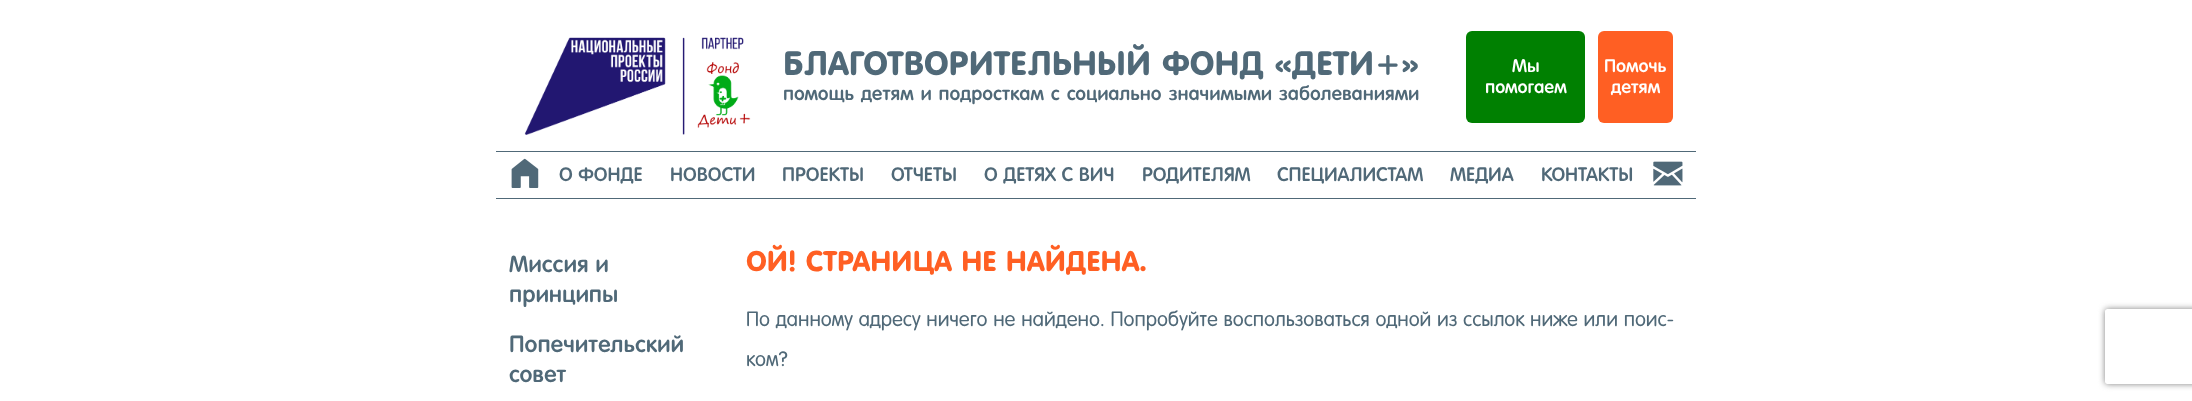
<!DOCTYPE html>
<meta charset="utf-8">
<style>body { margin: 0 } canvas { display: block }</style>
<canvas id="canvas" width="2192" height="401"></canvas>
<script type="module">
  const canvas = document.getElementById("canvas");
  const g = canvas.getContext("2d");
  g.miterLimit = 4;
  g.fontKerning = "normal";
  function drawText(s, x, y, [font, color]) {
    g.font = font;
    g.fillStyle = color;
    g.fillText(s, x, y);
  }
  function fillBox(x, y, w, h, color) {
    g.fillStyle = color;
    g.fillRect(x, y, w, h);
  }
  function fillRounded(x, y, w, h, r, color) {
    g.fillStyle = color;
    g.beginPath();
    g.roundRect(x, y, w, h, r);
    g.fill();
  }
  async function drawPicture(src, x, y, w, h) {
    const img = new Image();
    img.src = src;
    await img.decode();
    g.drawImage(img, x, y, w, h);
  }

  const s1 = ["bold 32.5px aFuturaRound", "#506978"];
  const s2 = ["18.75px aFuturaRound", "#506978"];
  const s3 = ["17.5px aFuturaRound", "#FFFFFF"];
  const s4 = ["22.5px aFuturaRound", "#506978"];
  const s5 = ["bold 27.5px aFuturaRound", "#FF5F23"];
  const s6 = ["20px 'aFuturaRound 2'", "#506978"];

  fillBox(0, 0, 2192, 401, "#FFFFFF");
  await drawPicture("pic1.png", 524, 37, 227, 98);
  drawText("БЛАГОТВОРИТЕЛЬНЫЙ ФОНД «ДЕТИ+»", 783, 75, s1);
  g.wordSpacing = "1.25px";
  drawText("помощь детям и подросткам с социально значимыми заболеваниями", 783, 100, s2);
  fillRounded(1466, 31, 119, 92, 6, "#008001");
  g.wordSpacing = "0px";
  drawText("Мы", 1512, 72, s3);
  drawText("помогаем", 1485, 93, s3);
  fillRounded(1598, 31, 75, 92, 6, "#FF5F23");
  drawText("Помочь", 1604, 72, s3);
  drawText("детям", 1611, 93, s3);
  fillBox(496, 151, 1200, 1, "#506978");
  fillBox(496, 198, 1200, 1, "#506978");
  await drawPicture("pic2.png", 511, 158, 28, 30);
  drawText("О ФОНДЕ", 559, 181, s2);
  drawText("НОВОСТИ", 670, 181, s2);
  drawText("ПРОЕКТЫ", 782, 181, s2);
  drawText("ОТЧЕТЫ", 891, 181, s2);
  drawText("О ДЕТЯХ С ВИЧ", 984, 181, s2);
  drawText("РОДИТЕЛЯМ", 1142, 181, s2);
  drawText("СПЕЦИАЛИСТАМ", 1277, 181, s2);
  drawText("МЕДИА", 1450, 181, s2);
  drawText("КОНТАКТЫ", 1541, 181, s2);
  await drawPicture("pic3.png", 1653, 161, 30, 25);
  drawText("Миссия и", 509, 272, s4);
  drawText("принципы", 509, 302, s4);
  drawText("Попечительский", 509, 352, s4);
  drawText("совет", 509, 382, s4);
  drawText("ОЙ! СТРАНИЦА НЕ НАЙДЕНА.", 746, 271, s5);
  drawText("По данному адресу ничего не найдено. Попробуйте воспользоваться одной из ссылок ниже или поис-", 746, 326, s6);
  drawText("ком?", 746, 366, s6);
  g.save();
  g.beginPath();
  g.moveTo(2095, 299);
  g.lineTo(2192, 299);
  g.lineTo(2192, 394);
  g.lineTo(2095, 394);
  g.closePath();
  g.moveTo(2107.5, 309);
  g.lineTo(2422.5, 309);
  g.bezierCurveTo(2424, 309, 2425, 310, 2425, 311.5);
  g.lineTo(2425, 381.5);
  g.bezierCurveTo(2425, 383, 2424, 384, 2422.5, 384);
  g.lineTo(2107.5, 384);
  g.bezierCurveTo(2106, 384, 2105, 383, 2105, 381.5);
  g.lineTo(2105, 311.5);
  g.bezierCurveTo(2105, 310, 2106, 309, 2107.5, 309);
  g.closePath();
  g.clip("evenodd");
  g.fillStyle = "#808080";
  g.filter = "blur(3px)";
  g.beginPath();
  g.roundRect(2105, 309, 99, 75, 2.5);
  g.fill();
  g.filter = "none";
  g.restore();
</script>
